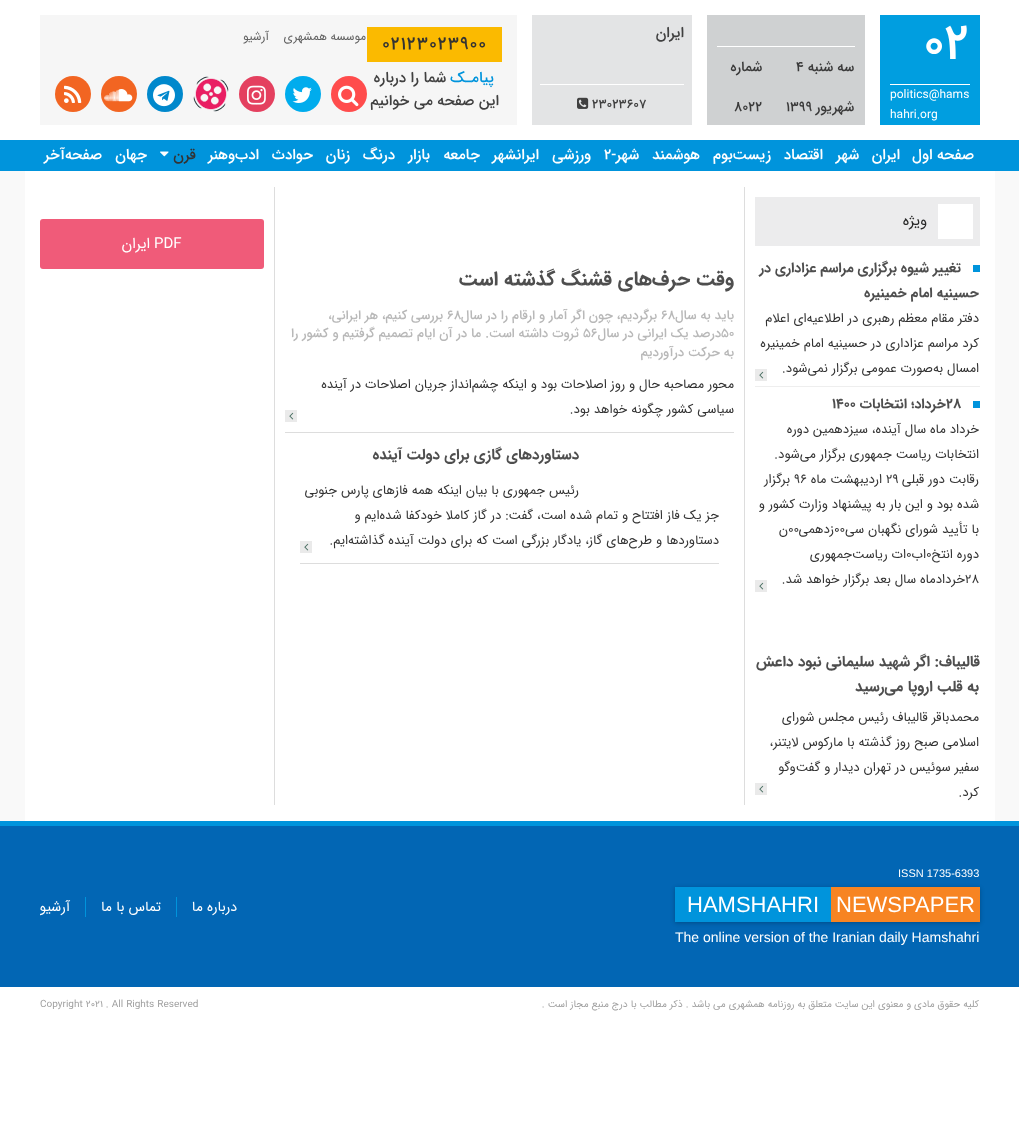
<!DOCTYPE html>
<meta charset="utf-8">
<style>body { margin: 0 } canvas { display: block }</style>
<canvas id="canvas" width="1019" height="1140"></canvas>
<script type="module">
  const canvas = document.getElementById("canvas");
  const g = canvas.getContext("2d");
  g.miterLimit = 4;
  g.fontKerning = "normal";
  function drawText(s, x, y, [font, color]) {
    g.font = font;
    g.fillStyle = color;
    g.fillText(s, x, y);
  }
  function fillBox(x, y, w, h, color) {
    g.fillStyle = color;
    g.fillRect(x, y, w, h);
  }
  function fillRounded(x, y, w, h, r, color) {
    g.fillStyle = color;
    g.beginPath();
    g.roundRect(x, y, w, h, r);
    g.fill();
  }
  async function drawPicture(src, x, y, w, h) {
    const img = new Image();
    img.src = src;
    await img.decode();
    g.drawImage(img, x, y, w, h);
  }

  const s1 = ["500 50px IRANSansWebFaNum", "#FFFFFF"];
  const s2 = ["12px IRANSansWebFaNum", "#FFFFFF"];
  const s3 = ["500 14px IRANSansWebFaNum", "#3A3A3A"];
  const s4 = ["500 15px IRANSansWebFaNum", "#404040"];
  const s5 = ["500 13px IRANSansWebFaNum", "#404040"];
  const s6 = ["500 18px IRANSansWebFaNum", "#333333"];
  const s7 = ["500 15px IRANSansWebFaNum", "#0094DC"];
  const s8 = ["12px IRANSansWebFaNum", "#626262"];
  const s9 = ["500 15px IRANSansWebFaNum", "#FFFFFF"];
  const s10 = ["500 15px IRANSansWebFaNum", "#333333"];
  const s11 = ["15px IRANSansWebFaNum", "#292929"];
  const s12 = ["bold 14px IRANSansWebFaNum", "#4E4E4E"];
  const s13 = ["13px IRANSansWebFaNum", "#333333"];
  const s14 = ["bold 15px IRANSansWebFaNum", "#4E4E4E"];
  const s15 = ["15px IRANSansWebFaNum", "#FFFFFF"];
  const s16 = ["bold 20px IRANSansWebFaNum", "#4E4E4E"];
  const s17 = ["500 13px IRANSansWebFaNum", "#B8B8B8"];
  const s18 = ["11px Liberation Sans", "#FFFFFF"];
  const s19 = ["22px Liberation Sans", "#FFFFFF"];
  const s20 = ["14px Liberation Sans", "#FFFFFF"];
  const s21 = ["14px IRANSansWebFaNum", "#FFFFFF"];
  const s22 = ["10px IRANSansWebFaNum", "#A1A1A1"];

  fillBox(0, 0, 1019, 1140, "#FFFFFF");
  fillBox(880, 15, 100, 110, "#009EE0");
  drawText("02", 923, 58, s1);
  fillBox(890, 84, 80, 1, "#FFFFFF");
  drawText("politics@hams", 890, 98, s2);
  drawText("hahri.org", 890, 118, s2);
  fillBox(707, 15, 158, 110, "#CFD1D2");
  fillBox(717, 46, 138, 1, "#FFFFFF");
  g.direction = "rtl";
  drawText("سه شنبه", 854, 71, s3);
  g.direction = "ltr";
  drawText("4", 796, 71, s3);
  g.direction = "rtl";
  drawText("شهریور", 854, 111, s3);
  g.direction = "ltr";
  drawText("1399", 786, 111, s3);
  g.direction = "rtl";
  drawText("شماره", 762, 71, s3);
  g.direction = "ltr";
  drawText("8022", 734, 111, s3);
  fillBox(532, 15, 160, 110, "#E3E4E5");
  g.direction = "rtl";
  drawText("ایران", 684, 37, s4);
  fillBox(540, 84, 144, 1, "#FFFFFF");
  g.direction = "ltr";
  drawText("23023607", 592, 108, s5);
  await drawPicture("pic1.png", 577, 97, 12, 12);
  fillBox(40, 15, 477, 110, "#F6F6F6");
  fillBox(367, 27, 135, 35, "#FBBA00");
  g.letterSpacing = "1px";
  drawText("02123023900", 382, 49, s6);
  g.letterSpacing = "0px";
  g.direction = "rtl";
  drawText("پیامـک", 494, 82, s7);
  drawText("شما را درباره", 446, 82, s4);
  drawText("این صفحه می خوانیم", 499, 105, s4);
  drawText("موسسه همشهری", 366, 40, s8);
  drawText("آرشیو", 269, 40, s8);
  g.fillStyle = "#FF4C4C";
  g.beginPath();
  g.arc(349, 94, 18, 0, Math.PI * 2);
  g.fill();
  await drawPicture("pic2.png", 338, 85, 21, 22);
  g.fillStyle = "#00ACED";
  g.beginPath();
  g.arc(303, 94, 18, 0, Math.PI * 2);
  g.fill();
  await drawPicture("pic3.png", 292, 87, 20, 16);
  g.fillStyle = "#E4405F";
  g.beginPath();
  g.arc(257, 94, 18, 0, Math.PI * 2);
  g.fill();
  await drawPicture("pic4.png", 247, 85, 19, 20);
  await drawPicture("pic5.png", 193, 76, 36, 36);
  g.fillStyle = "#0088CC";
  g.beginPath();
  g.arc(165, 94, 18, 0, Math.PI * 2);
  g.fill();
  await drawPicture("pic6.png", 153, 84, 22, 23);
  g.fillStyle = "#F26522";
  g.beginPath();
  g.arc(119, 94, 18, 0, Math.PI * 2);
  g.fill();
  await drawPicture("pic7.png", 104, 89, 29, 13);
  g.beginPath();
  g.arc(73, 94, 18, 0, Math.PI * 2);
  g.fill();
  await drawPicture("pic8.png", 64, 85, 18, 18);
  fillBox(0, 140, 1019, 31, "#0094DC");
  drawText("صفحه اول", 974, 159, s9);
  drawText("ایران", 900, 159, s9);
  drawText("شهر", 859, 159, s9);
  drawText("اقتصاد", 823, 159, s9);
  drawText("زیست‌بوم", 771, 159, s9);
  drawText("هوشمند", 700, 159, s9);
  drawText("شهر-", 639, 159, s9);
  g.direction = "ltr";
  drawText("۲", 604, 159, s9);
  g.direction = "rtl";
  drawText("ورزشی", 591, 159, s9);
  drawText("ایرانشهر", 539, 159, s9);
  drawText("جامعه", 480, 159, s9);
  drawText("بازار", 430, 159, s9);
  drawText("درنگ", 395, 159, s9);
  drawText("زنان", 350, 159, s9);
  drawText("حوادث", 313, 159, s9);
  drawText("ادب‌وهنر", 259, 159, s9);
  drawText("قرن", 196, 159, s10);
  await drawPicture("pic9.png", 160, 151, 9, 6);
  drawText("جهان", 147, 159, s9);
  drawText("صفحه‌آخر", 102, 159, s9);
  fillBox(0, 171, 1019, 650, "#F9F9F9");
  fillBox(25, 171, 970, 650, "#FFFFFF");
  fillBox(744, 187, 1, 618, "#DDDDDD");
  fillBox(755, 197, 225, 49, "#ECECED");
  fillBox(938, 204, 35, 35, "#FFFFFF");
  drawText("ویژه", 927, 225, s11);
  fillBox(755, 386, 225, 1, "#EEEEEE");
  fillBox(973, 265, 7, 7, "#0094DC");
  drawText("تغییر شیوه برگزاری مراسم عزاداری در", 961, 272, s12);
  drawText("حسینیه امام خمینیره", 979, 297, s12);
  drawText("دفتر مقام معظم رهبری در اطلاعیه‌ای اعلام", 979, 322, s13);
  drawText("کرد مراسم عزاداری در حسینیه امام خمینیره", 979, 347, s13);
  drawText("امسال به‌صورت عمومی برگزار نمی‌شود.", 979, 372, s13);
  fillBox(755, 369, 12, 12, "#EAEAEA");
  await drawPicture("pic10.png", 759, 371, 5, 8);
  fillBox(973, 401, 7, 7, "#0094DC");
  g.direction = "ltr";
  drawText("28", 946, 408, s12);
  g.direction = "rtl";
  drawText("خرداد؛ انتخابات", 946, 408, s12);
  g.direction = "ltr";
  drawText("1400", 832, 408, s12);
  g.direction = "rtl";
  drawText("خرداد ماه سال آینده، سیزدهمین دوره", 979, 433, s13);
  drawText("انتخابات ریاست جمهوری برگزار می‌شود.", 979, 458, s13);
  drawText("رقابت‌ دور قبلی", 979, 483, s13);
  g.direction = "ltr";
  drawText("29", 886, 483, s13);
  g.direction = "rtl";
  drawText("اردیبهشت‌ ماه", 882, 483, s13);
  g.direction = "ltr";
  drawText("96", 794, 483, s13);
  g.direction = "rtl";
  drawText("برگزار", 790, 483, s13);
  drawText("شده بود و این بار به پیشنهاد وزارت کشور و", 979, 508, s13);
  drawText("با تأیید شورای نگهبان سی", 979, 533, s13);
  g.direction = "ltr";
  drawText("00", 834, 533, s13);
  g.direction = "rtl";
  drawText("زدهمی", 834, 533, s13);
  g.direction = "ltr";
  drawText("00", 788, 533, s13);
  g.direction = "rtl";
  drawText("ن", 788, 533, s13);
  drawText("دوره انتخ", 979, 558, s13);
  g.direction = "ltr";
  drawText("0", 926, 558, s13);
  g.direction = "rtl";
  drawText("اب", 926, 558, s13);
  g.direction = "ltr";
  drawText("0", 906, 558, s13);
  g.direction = "rtl";
  drawText("ات ریاست‌جمهوری", 906, 558, s13);
  drawText("خردادماه سال بعد برگزار خواهد شد.", 965, 583, s13);
  g.direction = "ltr";
  drawText("28", 965, 583, s13);
  fillBox(755, 580, 12, 12, "#EAEAEA");
  await drawPicture("pic10.png", 759, 582, 5, 8);
  g.direction = "rtl";
  drawText("قالیباف: اگر شهید سلیمانی نبود داعش", 980, 666, s14);
  drawText("به قلب اروپا می‌رسید", 979, 691, s14);
  drawText("محمدباقر قالیباف رئیس مجلس شورای", 979, 721, s13);
  drawText("اسلامی صبح روز گذشته با مارکوس لایتنر،", 979, 746, s13);
  drawText("سفیر سوئیس در تهران دیدار و گفت‌وگو", 979, 771, s13);
  drawText("کرد.", 979, 796, s13);
  fillBox(755, 783, 12, 12, "#EAEAEA");
  await drawPicture("pic10.png", 759, 785, 5, 8);
  fillBox(274, 187, 1, 618, "#DDDDDD");
  fillRounded(40, 219, 224, 50, 3, "#F05B79");
  g.direction = "ltr";
  drawText("PDF", 154, 248, s15);
  g.direction = "rtl";
  drawText("ایران", 150, 248, s15);
  fillBox(285, 432, 449, 1, "#DDDDDD");
  drawText("وقت حرف‌های قشنگ گذشته است", 734, 285, s16);
  drawText("باید به سال", 734, 319, s17);
  g.direction = "ltr";
  drawText("68", 661, 319, s17);
  g.direction = "rtl";
  drawText("برگردیم، چون اگر آمار و ارقام را در سال", 657, 319, s17);
  g.direction = "ltr";
  drawText("68", 447, 319, s17);
  g.direction = "rtl";
  drawText("بررسی کنیم، هر ایرانی،", 443, 319, s17);
  g.direction = "ltr";
  drawText("50", 721, 337, s17);
  g.direction = "rtl";
  drawText("درصد یک ایرانی در سال", 721, 337, s17);
  g.direction = "ltr";
  drawText("56", 583, 337, s17);
  g.direction = "rtl";
  drawText("ثروت داشته است. ما در آن ایام تصمیم گرفتیم و کشور را", 579, 337, s17);
  drawText("به حرکت در‌آوردیم", 734, 356, s17);
  drawText("محور مصاحبه حال و روز اصلاحات بود و اینکه چشم‌انداز جریان اصلاحات در آینده", 734, 388, s13);
  drawText("سیاسی کشور چگونه خواهد بود.", 734, 413, s13);
  fillBox(285, 410, 12, 12, "#EAEAEA");
  await drawPicture("pic10.png", 289, 412, 5, 8);
  fillBox(300, 563, 419, 1, "#DDDDDD");
  drawText("دستاوردهای گازی برای دولت آینده", 579, 459, s14);
  drawText("رئیس جمهوری با بیان اینکه همه فازهای پارس جنوبی", 579, 494, s13);
  drawText("جز یک فاز افتتاح و تمام شده است، گفت: در گاز کاملا خودکفا شده‌ایم و", 719, 519, s13);
  drawText("دستاوردها و طرح‌های گاز، یادگار بزرگی است که برای دولت آینده گذاشته‌ایم.", 719, 544, s13);
  fillBox(300, 541, 12, 12, "#EAEAEA");
  await drawPicture("pic10.png", 304, 543, 5, 8);
  fillBox(0, 826, 1019, 161, "#0266B4");
  fillBox(0, 821, 1019, 5, "#0094DC");
  g.direction = "ltr";
  drawText("ISSN 1735-6393", 898, 877, s18);
  g.fillStyle = "rgba(0, 0, 0, 0.25)";
  g.filter = "blur(2px)";
  g.beginPath();
  g.rect(675, 888, 305, 35);
  g.fill();
  g.filter = "none";
  fillBox(675, 887, 156, 35, "#0094DC");
  fillBox(831, 887, 149, 35, "#F78422");
  drawText("NEWSPAPER", 836, 912, s19);
  drawText("HAMSHAHRI", 687, 912, s19);
  drawText("The online version of the Iranian daily Hamshahri", 675, 942, s20);
  fillBox(176, 897, 1, 20, "#0094DC");
  g.direction = "rtl";
  drawText("درباره ما", 237, 911, s21);
  fillBox(85, 897, 1, 20, "#0094DC");
  drawText("تماس با ما", 161, 911, s21);
  drawText("آرشیو", 70, 911, s21);
  drawText("کلیه حقوق مادی و معنوی این سایت متعلق به روزنامه همشهری می باشد . ذکر مطالب با درج منبع مجاز است .", 979, 1007, s22);
  g.direction = "ltr";
  drawText("Copyright 2021 . All Rights Reserved", 40, 1007, s22);
</script>
